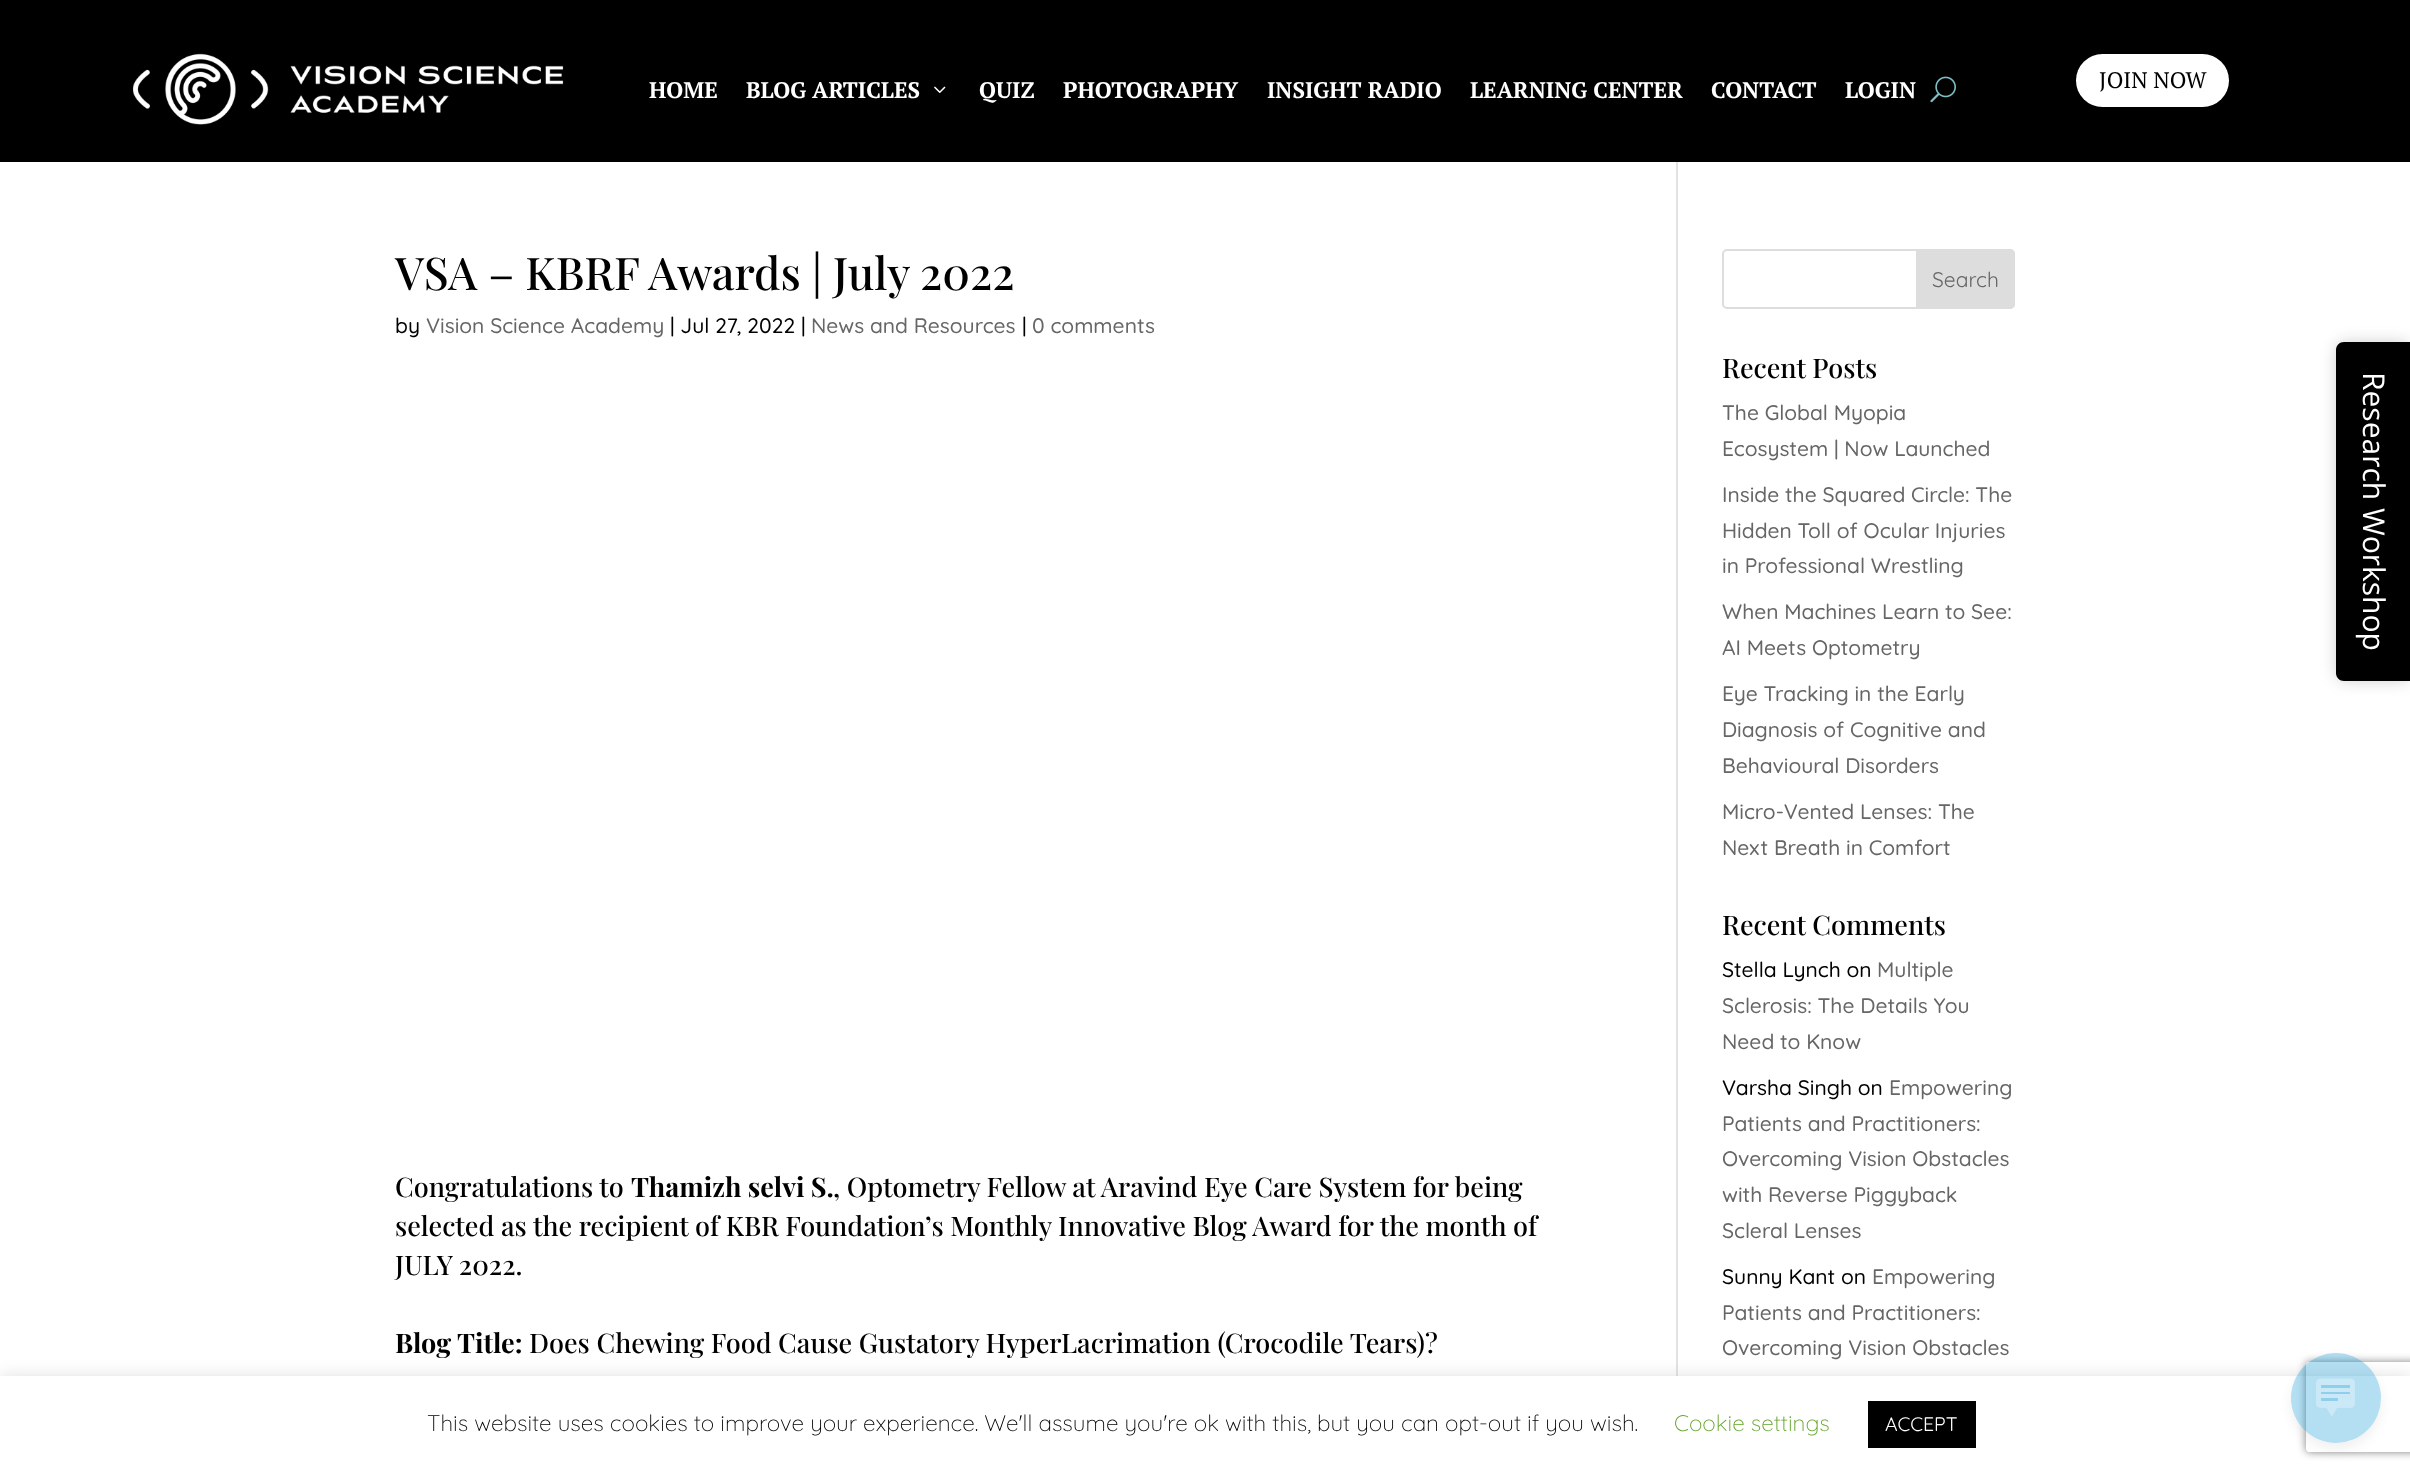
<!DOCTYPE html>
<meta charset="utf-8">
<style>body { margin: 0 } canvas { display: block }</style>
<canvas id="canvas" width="2410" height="1472"></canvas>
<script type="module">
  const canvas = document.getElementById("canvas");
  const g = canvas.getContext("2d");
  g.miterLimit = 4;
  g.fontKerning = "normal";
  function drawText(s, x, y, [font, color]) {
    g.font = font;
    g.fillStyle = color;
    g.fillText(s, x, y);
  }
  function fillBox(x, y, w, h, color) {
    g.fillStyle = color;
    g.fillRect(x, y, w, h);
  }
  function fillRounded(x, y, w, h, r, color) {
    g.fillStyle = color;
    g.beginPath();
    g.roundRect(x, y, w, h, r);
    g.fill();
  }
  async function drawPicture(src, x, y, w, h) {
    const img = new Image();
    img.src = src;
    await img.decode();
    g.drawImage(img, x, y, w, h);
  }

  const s1 = ["bold 22.5px PT Serif", "#FFFFFF"];
  const s2 = ["22.5px PT Serif", "#000000"];
  const s3 = ["500 45px Playfair Display", "#000000"];
  const s4 = ["300 21px Quicksand", "#000000"];
  const s5 = ["300 21px Quicksand", "#666666"];
  const s6 = ["500 27px Playfair Display", "#000000"];
  const s7 = ["bold 27px Playfair Display", "#000000"];
  const s8 = ["300 21px 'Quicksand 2'", "#666666"];
  const s9 = ["300 22.5px 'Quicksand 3'", "#000000"];
  const s10 = ["300 22.5px 'Quicksand 3'", "#62A329"];
  const s11 = ["300 19.5px 'Quicksand 2'", "#FFFFFF"];

  fillBox(0, 0, 2410, 1472, "#FFFFFF");
  fillBox(0, 0, 2410, 162, "#000000");
  await drawPicture("pic1.png", 133, 53, 431, 72);
  drawText("HOME", 649, 98, s1);
  drawText("BLOG ARTICLES", 746, 98, s1);
  await drawPicture("pic2.png", 934, 86, 12, 7);
  drawText("QUIZ", 979, 98, s1);
  drawText("PHOTOGRAPHY", 1063, 98, s1);
  drawText("INSIGHT RADIO", 1267, 98, s1);
  drawText("LEARNING CENTER", 1470, 98, s1);
  drawText("CONTACT", 1711, 98, s1);
  drawText("LOGIN", 1845, 98, s1);
  await drawPicture("pic3.png", 1930, 76, 26, 27);
  fillRounded(2076, 54, 153, 53, 26.5, "#FFFFFF");
  drawText("JOIN NOW", 2099, 88, s2);
  fillBox(1676, 162, 2, 1214, "#E2E2E2");
  drawText("VSA – KBRF Awards | July 2022", 395, 290, s3);
  drawText("by", 395, 333, s4);
  drawText("Vision Science Academy", 426, 333, s5);
  drawText("| Jul 27, 2022 |", 670, 333, s4);
  drawText("News and Resources", 811, 333, s5);
  drawText("|", 1022, 333, s4);
  drawText("0 comments", 1032, 333, s5);
  drawText("Congratulations to", 395, 1197, s6);
  drawText("Thamizh selvi S.", 631, 1197, s7);
  drawText(", Optometry Fellow at Aravind Eye Care System for being", 833, 1197, s6);
  drawText("selected as the recipient of KBR Foundation’s Monthly Innovative Blog Award for the month of", 395, 1236, s6);
  drawText("JULY 2022.", 395, 1275, s6);
  drawText("Blog Title:", 395, 1353, s7);
  drawText("Does Chewing Food Cause Gustatory HyperLacrimation (Crocodile Tears)?", 529, 1353, s6);
  g.beginPath();
  g.roundRect(1723, 250, 291, 58, 4);
  g.strokeStyle = "#DDDDDD";
  g.lineWidth = 2;
  g.stroke();
  g.fillStyle = "#DDDDDD";
  g.beginPath();
  g.roundRect(1917, 250, 97, 58, [0, 4, 4, 0]);
  g.fill();
  g.stroke();
  drawText("Search", 1932, 287, s8);
  drawText("Recent Posts", 1722, 378, s6);
  drawText("The Global Myopia", 1722, 420, s5);
  drawText("Ecosystem | Now Launched", 1722, 456, s5);
  drawText("Inside the Squared Circle: The", 1722, 502, s5);
  drawText("Hidden Toll of Ocular Injuries", 1722, 538, s5);
  drawText("in Professional Wrestling", 1722, 573, s5);
  drawText("When Machines Learn to See:", 1722, 619, s5);
  drawText("AI Meets Optometry", 1722, 655, s5);
  drawText("Eye Tracking in the Early", 1722, 701, s5);
  drawText("Diagnosis of Cognitive and", 1722, 737, s5);
  drawText("Behavioural Disorders", 1722, 773, s5);
  drawText("Micro-Vented Lenses: The", 1722, 819, s5);
  drawText("Next Breath in Comfort", 1722, 855, s5);
  drawText("Recent Comments", 1722, 935, s6);
  drawText("Stella Lynch on", 1722, 977, s4);
  drawText("Multiple", 1877, 977, s5);
  drawText("Sclerosis: The Details You", 1722, 1013, s5);
  drawText("Need to Know", 1722, 1049, s5);
  drawText("Varsha Singh on", 1722, 1095, s4);
  drawText("Empowering", 1889, 1095, s5);
  drawText("Patients and Practitioners:", 1722, 1131, s5);
  drawText("Overcoming Vision Obstacles", 1722, 1166, s5);
  drawText("with Reverse Piggyback", 1722, 1202, s5);
  drawText("Scleral Lenses", 1722, 1238, s5);
  drawText("Sunny Kant on", 1722, 1284, s4);
  drawText("Empowering", 1872, 1284, s5);
  drawText("Patients and Practitioners:", 1722, 1320, s5);
  drawText("Overcoming Vision Obstacles", 1722, 1355, s5);
  g.fillStyle = "rgba(19, 19, 19, 0.2)";
  g.filter = "blur(7.5px)";
  g.beginPath();
  g.roundRect(2336, 342, 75, 339, 11);
  g.fill();
  g.filter = "none";
  g.fillStyle = "#000000";
  g.beginPath();
  g.moveTo(2344, 342);
  g.lineTo(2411, 342);
  g.lineTo(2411, 681);
  g.lineTo(2344, 681);
  g.bezierCurveTo(2339.5, 681, 2336, 677.5, 2336, 673);
  g.lineTo(2336, 350);
  g.bezierCurveTo(2336, 345.5, 2339.5, 342, 2344, 342);
  g.closePath();
  g.fill();
  g.font = "30px Open Sans";
  g.fillStyle = "#FFFFFF";
  g.save();
  g.translate(2363, 372);
  g.rotate(90 * Math.PI / 180);
  g.fillText("Research Workshop", 0, 0);
  g.restore();
  g.fillStyle = "rgba(172, 171, 171, 0.3)";
  g.filter = "blur(7.5px)";
  g.beginPath();
  g.rect(0, 1374, 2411, 98);
  g.fill();
  g.filter = "none";
  fillBox(0, 1376, 2410, 96, "#FFFFFF");
  g.save();
  g.beginPath();
  g.moveTo(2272, 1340);
  g.lineTo(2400, 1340);
  g.lineTo(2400, 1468);
  g.lineTo(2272, 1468);
  g.closePath();
  g.moveTo(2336, 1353);
  g.bezierCurveTo(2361, 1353, 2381, 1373, 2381, 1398);
  g.bezierCurveTo(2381, 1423, 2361, 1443, 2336, 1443);
  g.bezierCurveTo(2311, 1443, 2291, 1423, 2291, 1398);
  g.bezierCurveTo(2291, 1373, 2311, 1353, 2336, 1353);
  g.closePath();
  g.clip("evenodd");
  g.fillStyle = "rgba(0, 0, 0, 0.06)";
  g.filter = "blur(6px)";
  g.beginPath();
  g.roundRect(2291, 1359, 90, 90, 45);
  g.fill();
  g.filter = "none";
  g.restore();
  g.save();
  g.beginPath();
  g.moveTo(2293, 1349);
  g.lineTo(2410, 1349);
  g.lineTo(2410, 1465);
  g.lineTo(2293, 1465);
  g.closePath();
  g.moveTo(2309, 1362);
  g.lineTo(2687, 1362);
  g.bezierCurveTo(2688.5, 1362, 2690, 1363.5, 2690, 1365);
  g.lineTo(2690, 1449);
  g.bezierCurveTo(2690, 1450.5, 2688.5, 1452, 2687, 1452);
  g.lineTo(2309, 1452);
  g.bezierCurveTo(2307.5, 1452, 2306, 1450.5, 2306, 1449);
  g.lineTo(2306, 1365);
  g.bezierCurveTo(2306, 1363.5, 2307.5, 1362, 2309, 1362);
  g.closePath();
  g.clip("evenodd");
  g.fillStyle = "#808080";
  g.filter = "blur(4px)";
  g.beginPath();
  g.roundRect(2306, 1362, 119, 90, 3);
  g.fill();
  g.filter = "none";
  g.restore();
  g.fillStyle = "rgba(5, 150, 212, 0.3)";
  g.beginPath();
  g.arc(2336, 1398, 45, 0, Math.PI * 2);
  g.fill();
  await drawPicture("pic4.png", 2316, 1378, 39, 39);
  drawText("This website uses cookies to improve your experience. We'll assume you're ok with this, but you can opt-out if you wish.", 427, 1431, s9);
  drawText("Cookie settings", 1674, 1431, s10);
  fillBox(1868, 1401, 108, 47, "#000000");
  drawText("ACCEPT", 1885, 1431, s11);
</script>
